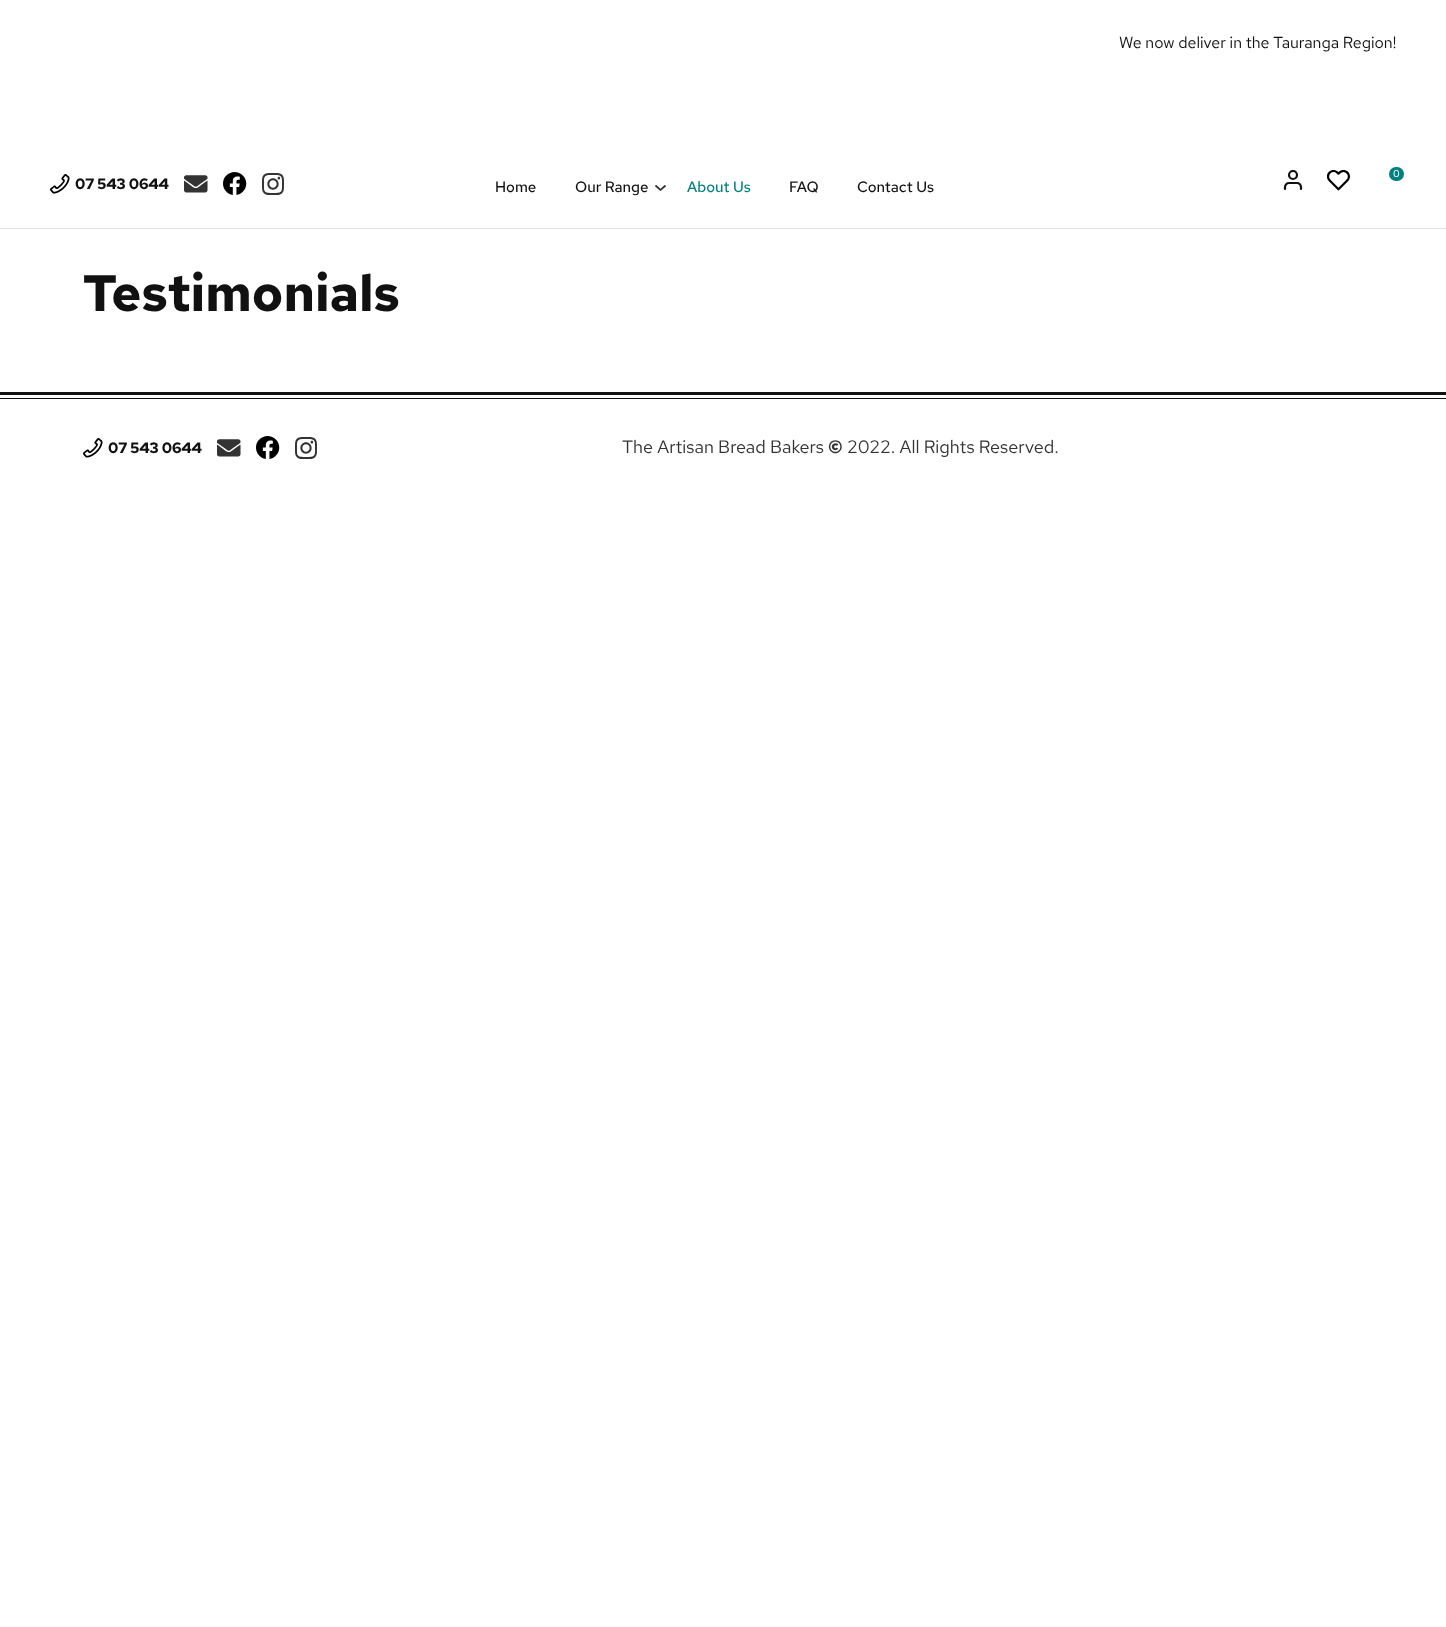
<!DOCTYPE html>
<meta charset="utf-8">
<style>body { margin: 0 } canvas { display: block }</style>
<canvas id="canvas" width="1446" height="1627"></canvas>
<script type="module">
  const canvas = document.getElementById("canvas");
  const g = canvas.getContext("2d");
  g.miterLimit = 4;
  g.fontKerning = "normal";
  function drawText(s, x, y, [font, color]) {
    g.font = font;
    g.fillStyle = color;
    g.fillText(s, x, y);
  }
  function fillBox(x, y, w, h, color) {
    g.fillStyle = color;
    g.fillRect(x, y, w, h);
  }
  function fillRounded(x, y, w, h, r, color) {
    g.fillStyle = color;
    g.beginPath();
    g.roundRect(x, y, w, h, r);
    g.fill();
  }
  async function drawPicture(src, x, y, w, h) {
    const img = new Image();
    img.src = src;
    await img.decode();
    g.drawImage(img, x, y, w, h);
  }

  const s1 = ["16px Red Hat Text", "#111111"];
  const s2 = ["500 10px Red Hat Text", "#F8F8F8"];
  const s3 = ["bold 15px Red Hat Text", "#111111"];
  const s4 = ["500 15px Red Hat Text", "#111111"];
  const s5 = ["500 15px Red Hat Text", "#008080"];
  const s6 = ["bold 51px Red Hat Text", "#111111"];
  const s7 = ["18px Red Hat Text", "#333333"];
  const s8 = ["bold 18px Red Hat Text", "#333333"];

  fillBox(0, 0, 1446, 1627, "#FFFFFF");
  drawText("We now deliver in the Tauranga Region!", 1119, 48, s1);
  await drawPicture("pic1.png", 1283, 170, 20, 20);
  await drawPicture("pic2.png", 1327, 170, 23, 21);
  fillRounded(1389, 167, 15, 14, 7, "#008080");
  drawText("0", 1393, 177, s2);
  await drawPicture("pic3.png", 50, 174, 20, 20);
  drawText("07 543 0644", 75, 189, s3);
  await drawPicture("pic4.png", 184, 175, 24, 18);
  await drawPicture("pic5.png", 223, 172, 24, 23);
  await drawPicture("pic6.png", 262, 173, 22, 22);
  drawText("Home", 495, 192, s4);
  drawText("Our Range", 575, 192, s4);
  await drawPicture("pic7.png", 655, 185, 11, 6);
  drawText("About Us", 687, 192, s5);
  drawText("FAQ", 789, 192, s4);
  drawText("Contact Us", 857, 192, s4);
  fillBox(0, 228, 1446, 1, "#E1E1E1");
  drawText("Testimonials", 83, 311, s6);
  fillBox(0, 392, 1446, 3, "#111111");
  fillBox(0, 398, 1446, 1, "#111111");
  await drawPicture("pic3.png", 83, 438, 20, 20);
  drawText("07 543 0644", 108, 453, s3);
  await drawPicture("pic4.png", 217, 439, 24, 18);
  await drawPicture("pic8.png", 256, 436, 24, 23);
  await drawPicture("pic6.png", 295, 437, 22, 22);
  drawText("The Artisan Bread Bakers", 622, 453, s7);
  drawText("©", 828, 453, s8);
  drawText("2022. All Rights Reserved.", 847, 453, s7);
</script>
